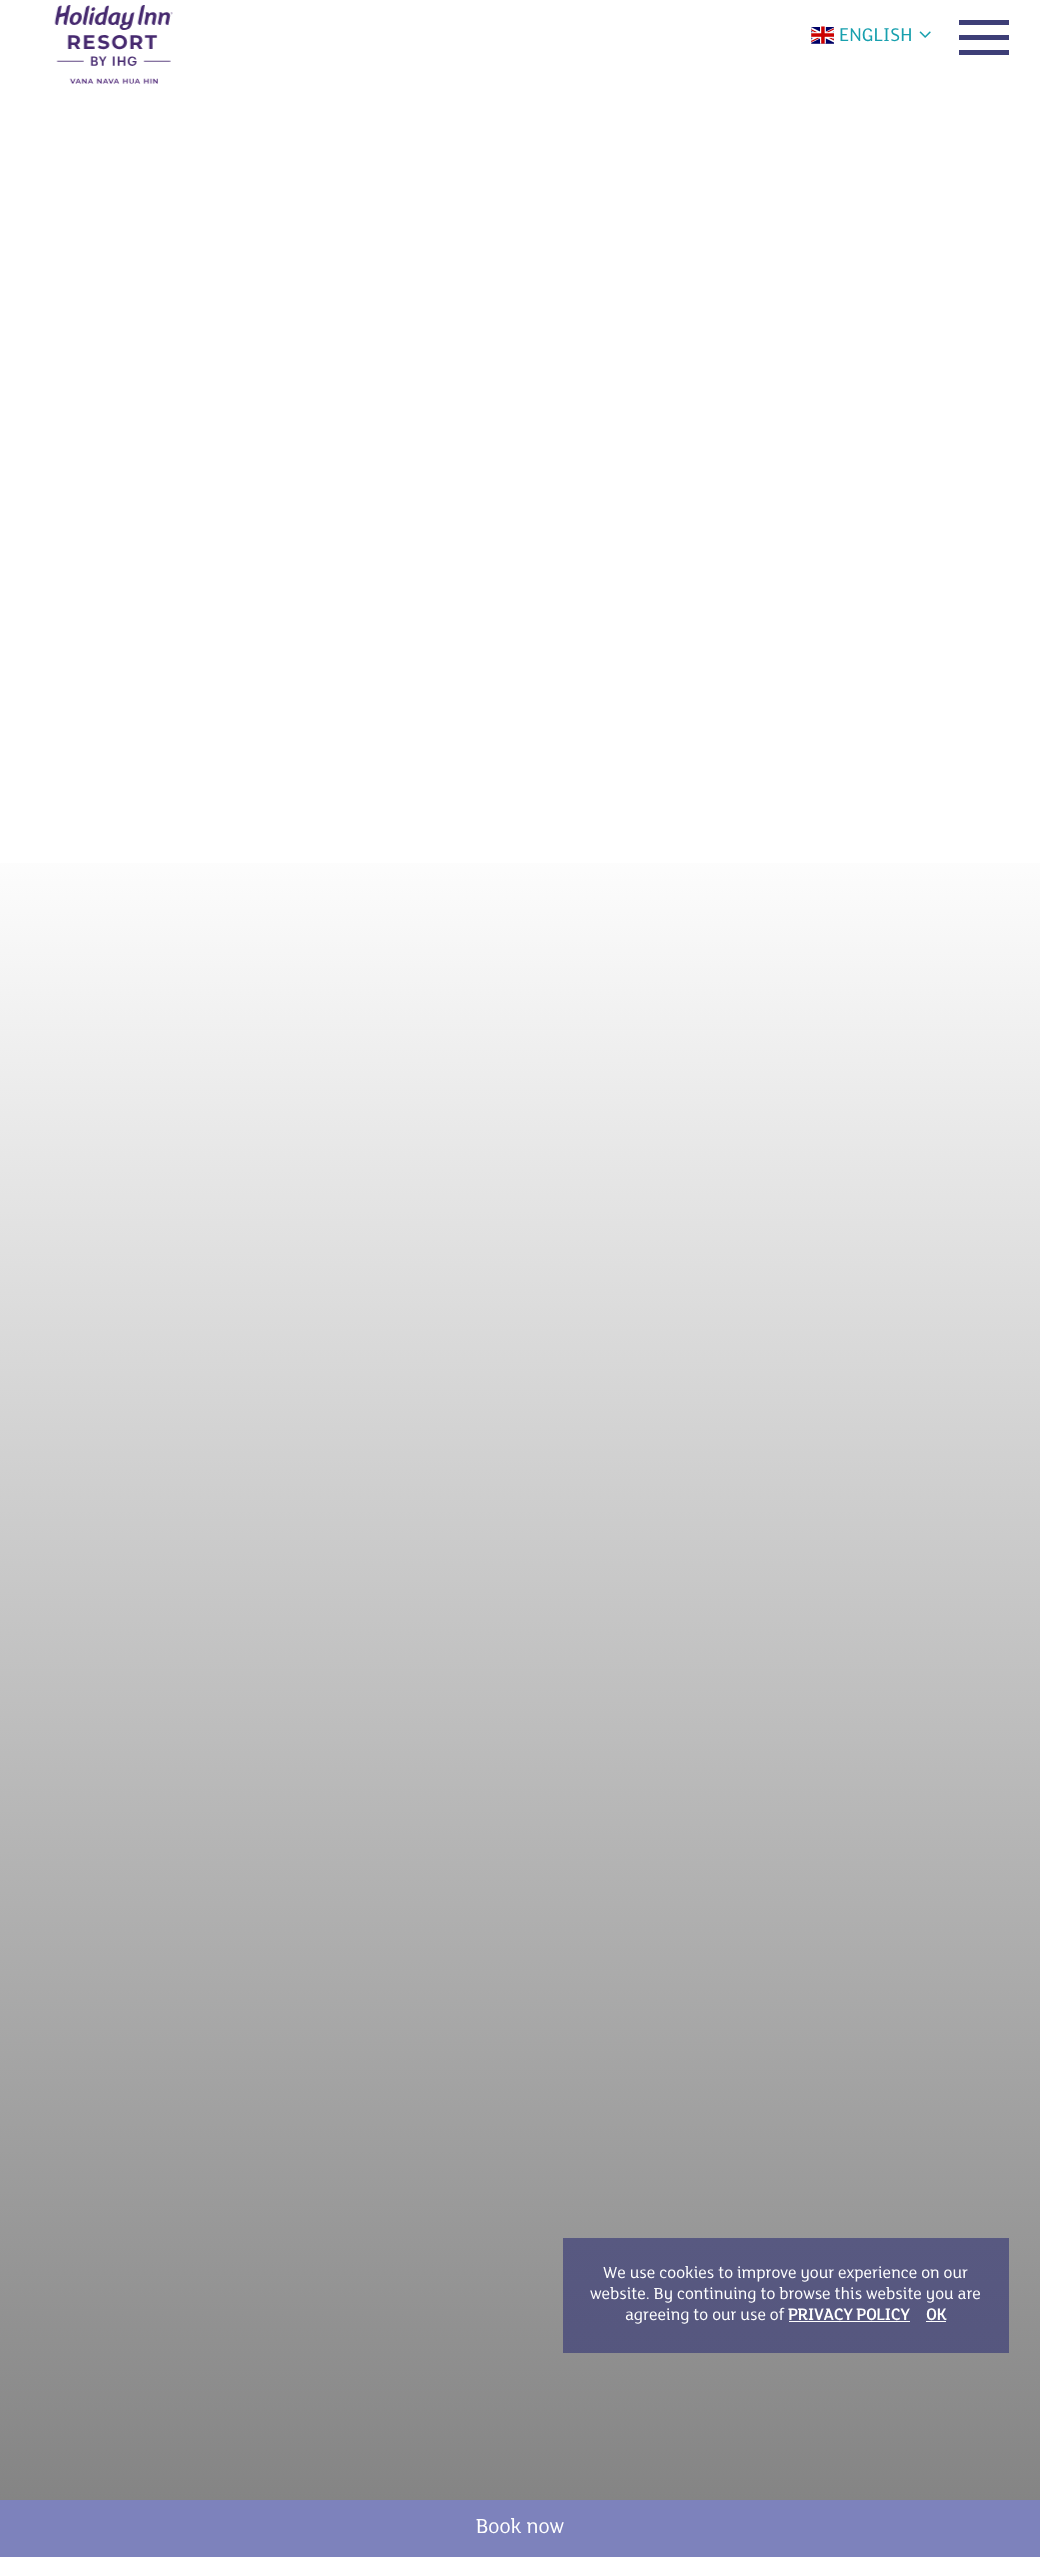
<!DOCTYPE html>
<meta charset="utf-8">
<style>body { margin: 0 } canvas { display: block }</style>
<canvas id="canvas" width="1040" height="2557"></canvas>
<script type="module">
  const canvas = document.getElementById("canvas");
  const g = canvas.getContext("2d");
  g.miterLimit = 4;
  g.fontKerning = "normal";
  function drawText(s, x, y, [font, color]) {
    g.font = font;
    g.fillStyle = color;
    g.fillText(s, x, y);
  }
  function fillBox(x, y, w, h, color) {
    g.fillStyle = color;
    g.fillRect(x, y, w, h);
  }
  async function drawPicture(src, x, y, w, h) {
    const img = new Image();
    img.src = src;
    await img.decode();
    g.drawImage(img, x, y, w, h);
  }
  let gradient;

  const s1 = ["20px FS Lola", "#18A0AE"];
  const s2 = ["22px FS Lola", "#FFFFFF"];
  const s3 = ["17.5px FS Lola", "#FFFFFF"];
  const s4 = ["bold 17.5px FS Lola", "#FFFFFF"];

  fillBox(0, 0, 1040, 2557, "#FFFFFF");
  await drawPicture("pic1.png", 54, 5, 119, 79);
  await drawPicture("pic2.png", 811, 26, 23, 18);
  drawText("ENGLISH", 839, 41, s1);
  await drawPicture("pic3.png", 919, 31, 12, 7);
  fillBox(959, 20, 50, 5, "#3D3E77");
  fillBox(959, 35, 50, 5, "#3D3E77");
  fillBox(959, 50, 50, 5, "#3D3E77");
  gradient = g.createLinearGradient(520, 829, 520, 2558);
  gradient.addColorStop(0, "#FFFFFF");
  gradient.addColorStop(1, "#808080");
  g.fillStyle = gradient;
  g.fillRect(0, 863, 1040, 1637);
  gradient = g.createLinearGradient(520, 829, 520, 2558);
  gradient.addColorStop(0, "#7778A0");
  gradient.addColorStop(1, "#51527A");
  g.fillStyle = gradient;
  g.fillRect(563, 2238, 446, 115);
  fillBox(0, 2500, 1040, 57, "#7D82BC");
  drawText("Book now", 476, 2533, s2);
  drawText("We use cookies to improve your experience on our", 603, 2278, s3);
  drawText("website. By continuing to browse this website you are", 590, 2299, s3);
  drawText("agreeing to our use of", 625, 2320, s3);
  drawText("PRIVACY POLICY", 788, 2320, s4);
  fillBox(789, 2321, 121, 1, "#FFFFFF");
  drawText("OK", 926, 2320, s4);
  fillBox(926, 2321, 20, 1, "#FFFFFF");
</script>
